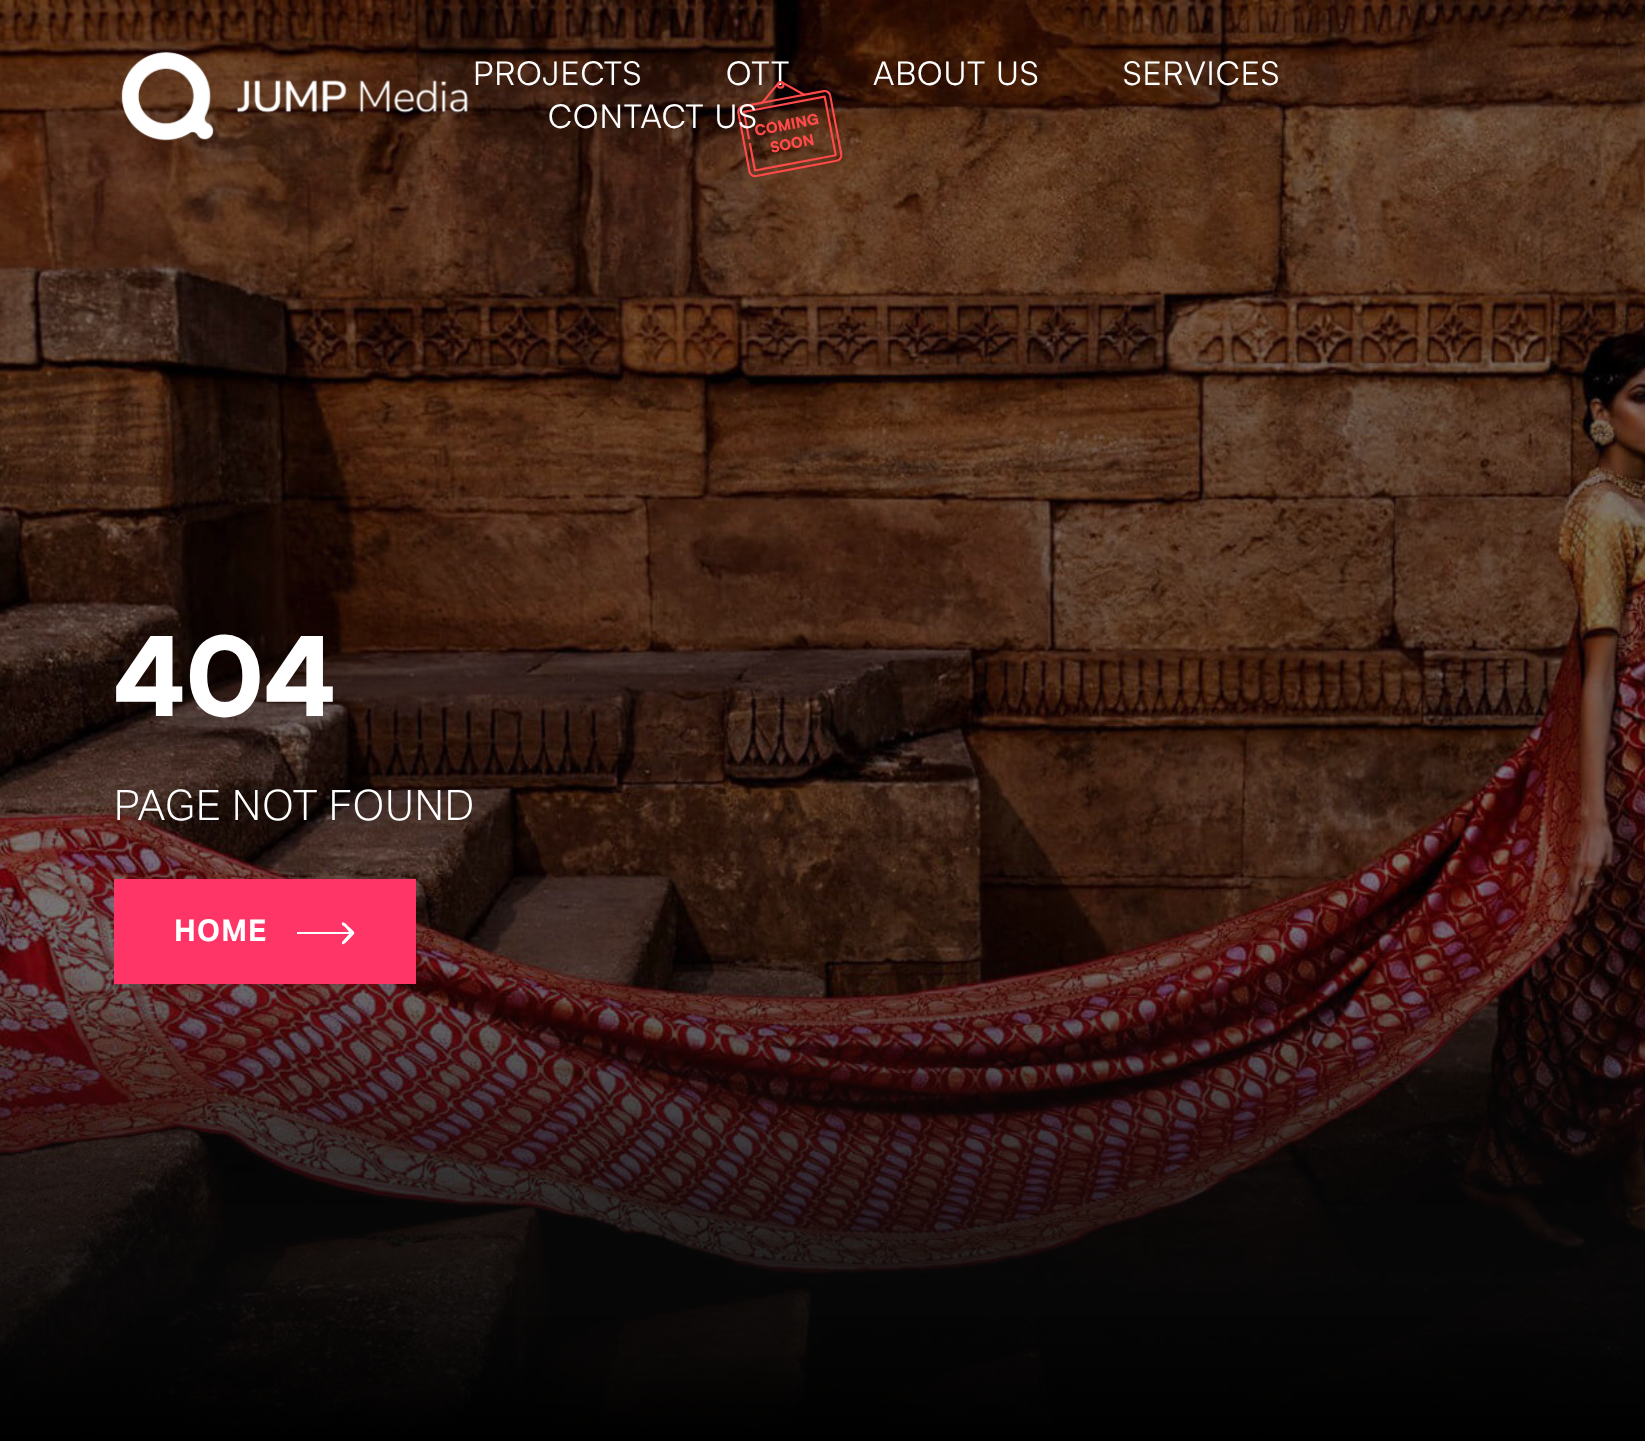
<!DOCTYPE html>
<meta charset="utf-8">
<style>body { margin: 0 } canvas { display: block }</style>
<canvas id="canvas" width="1645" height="1441"></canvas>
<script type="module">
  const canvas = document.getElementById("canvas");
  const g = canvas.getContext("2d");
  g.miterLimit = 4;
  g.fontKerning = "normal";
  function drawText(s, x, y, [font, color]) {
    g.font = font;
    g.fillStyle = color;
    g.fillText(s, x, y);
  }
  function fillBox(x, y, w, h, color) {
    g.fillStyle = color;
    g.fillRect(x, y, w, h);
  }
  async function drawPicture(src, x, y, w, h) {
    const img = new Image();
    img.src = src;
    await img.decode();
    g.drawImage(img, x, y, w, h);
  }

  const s1 = ["33px Satoshi", "#FFFFFF"];
  const s2 = ["900 108px Satoshi", "#FFFFFF"];
  const s3 = ["300 42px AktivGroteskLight", "#FFFFFF"];
  const s4 = ["bold 30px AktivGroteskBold", "#FFFFFF"];

  fillBox(0, 0, 1645, 1441, "#FFFFFF");
  await drawPicture("pic3.png", 0, 0, 1645, 1441);
  await drawPicture("pic1.png", 121, 51, 347, 90);
  g.letterSpacing = "1px";
  drawText("PROJECTS", 473, 85, s1);
  drawText("OTT", 726, 85, s1);
  await drawPicture("pic2.png", 737, 81, 106, 97);
  drawText("ABOUT US", 873, 85, s1);
  drawText("SERVICES", 1123, 85, s1);
  drawText("CONTACT US", 548, 128, s1);
  drawText("404", 114, 716, s2);
  drawText("PAGE NOT FOUND", 114, 820, s3);
  fillBox(114, 879, 302, 105, "#FF3467");
  drawText("HOME", 174, 941, s4);
  g.beginPath();
  g.moveTo(354, 934);
  g.bezierCurveTo(356, 932, 350, 928, 349, 927);
  g.bezierCurveTo(348, 926, 343, 920, 342, 923);
  g.bezierCurveTo(341, 925, 344, 926, 345, 927);
  g.lineTo(350, 933);
  g.lineTo(342, 942);
  g.lineTo(342, 944);
  g.bezierCurveTo(344, 946, 352, 936, 354, 934);
  g.closePath();
  g.moveTo(297, 934);
  g.lineTo(353, 934);
  g.lineTo(353, 932);
  g.lineTo(297, 932);
  g.closePath();
  g.fill();
</script>
